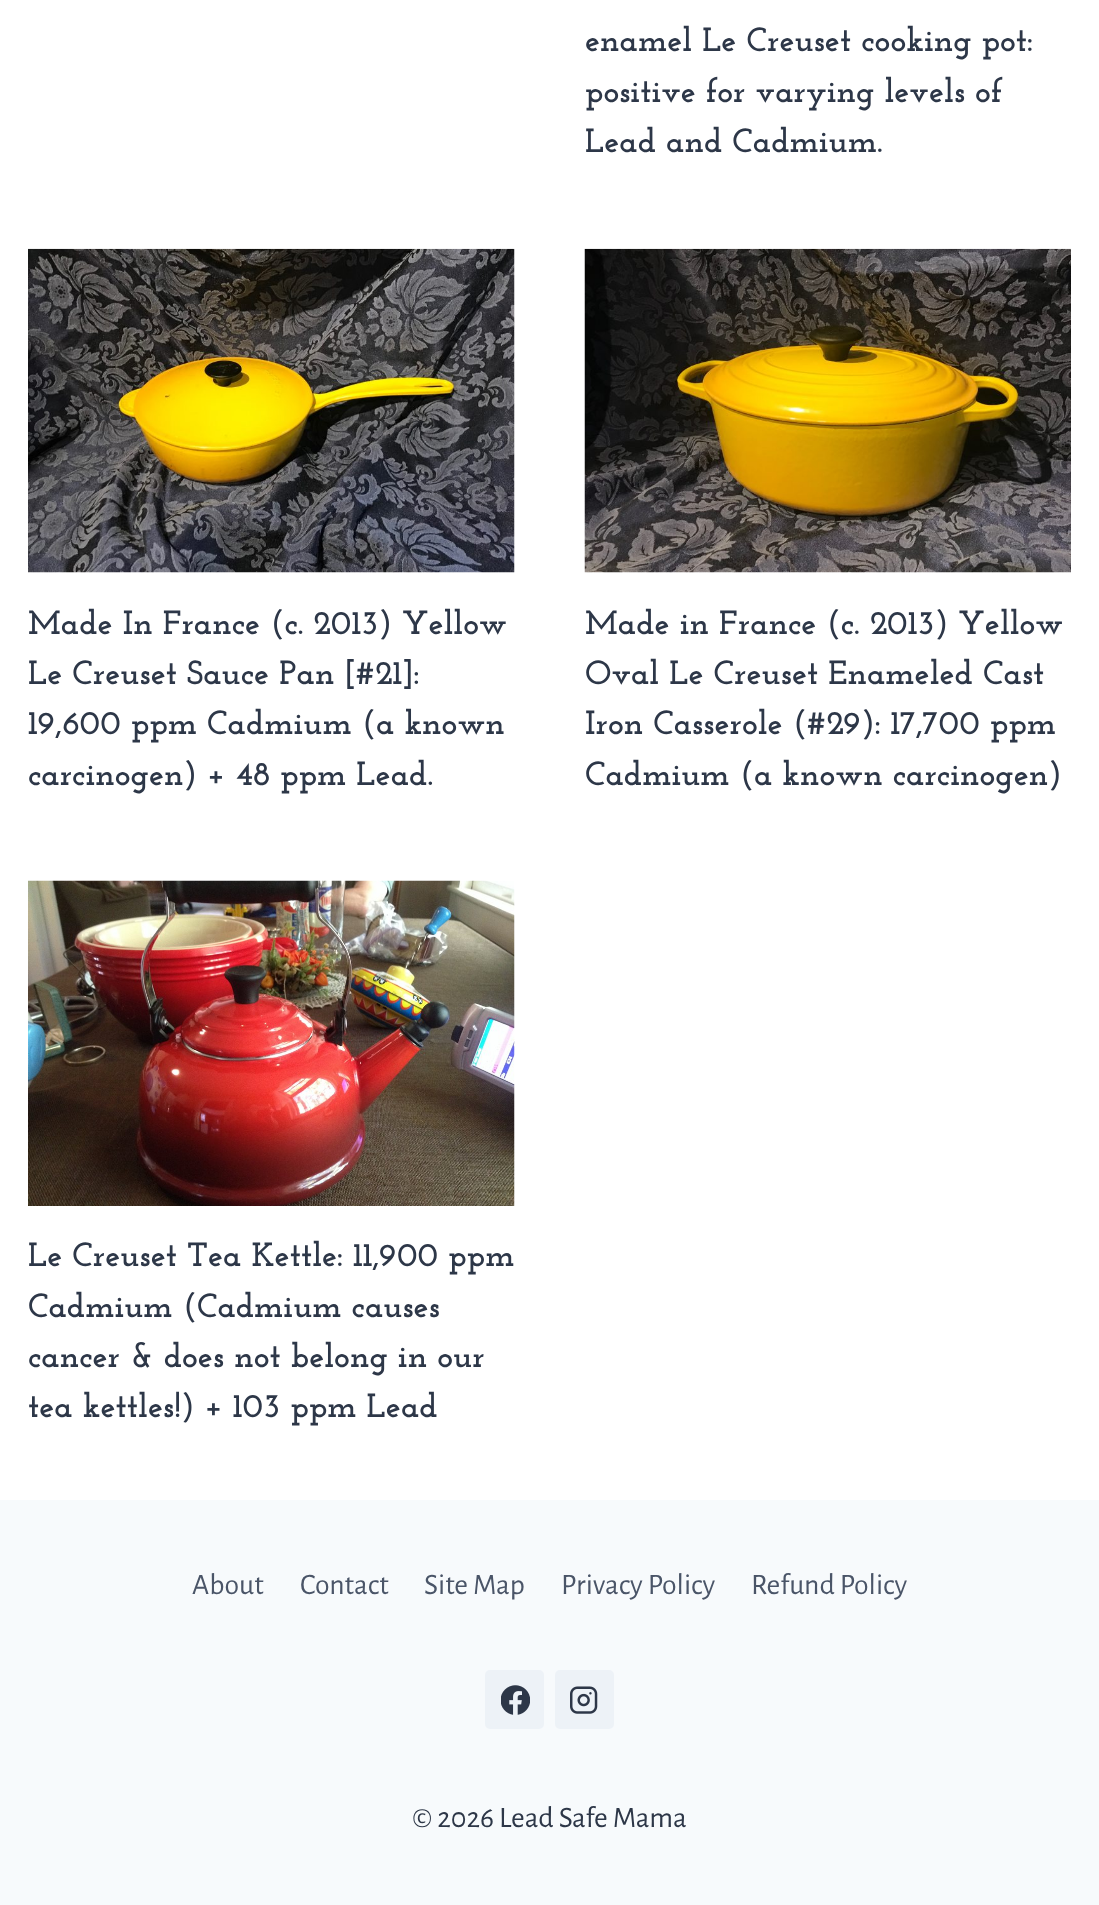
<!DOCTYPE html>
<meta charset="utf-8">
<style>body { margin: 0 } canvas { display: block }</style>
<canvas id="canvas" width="1099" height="1905"></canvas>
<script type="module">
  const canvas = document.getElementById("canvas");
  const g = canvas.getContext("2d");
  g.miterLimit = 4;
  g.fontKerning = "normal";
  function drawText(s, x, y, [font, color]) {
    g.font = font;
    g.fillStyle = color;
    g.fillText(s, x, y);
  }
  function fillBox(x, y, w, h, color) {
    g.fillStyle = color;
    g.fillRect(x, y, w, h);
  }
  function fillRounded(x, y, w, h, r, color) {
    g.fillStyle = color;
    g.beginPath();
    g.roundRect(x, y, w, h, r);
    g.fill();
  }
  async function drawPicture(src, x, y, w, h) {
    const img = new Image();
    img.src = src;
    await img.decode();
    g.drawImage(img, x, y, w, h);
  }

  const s1 = ["100 33.6px Josefin Slab", "#2D3748"];
  const s2 = ["29.75px Alegreya Sans", "#4A5568"];
  const s3 = ["29.75px Alegreya Sans", "#2D3748"];

  fillBox(0, 0, 1099, 1905, "#FFFFFF");
  drawText("enamel Le Creuset cooking pot:", 585, 51, s1);
  drawText("positive for varying levels of", 585, 102, s1);
  drawText("Lead and Cadmium.", 585, 152, s1);
  await drawPicture("pic1.png", 28, 248, 487, 325);
  drawText("Made In France (c. 2013) Yellow", 28, 634, s1);
  drawText("Le Creuset Sauce Pan [#21]:", 28, 684, s1);
  drawText("19,600 ppm Cadmium (a known", 28, 734, s1);
  drawText("carcinogen) + 48 ppm Lead.", 28, 785, s1);
  await drawPicture("pic2.png", 584, 248, 487, 325);
  drawText("Made in France (c. 2013) Yellow", 585, 634, s1);
  drawText("Oval Le Creuset Enameled Cast", 585, 684, s1);
  drawText("Iron Casserole (#29): 17,700 ppm", 585, 734, s1);
  drawText("Cadmium (a known carcinogen)", 585, 785, s1);
  await drawPicture("pic3.png", 28, 880, 487, 326);
  drawText("Le Creuset Tea Kettle: 11,900 ppm", 28, 1266, s1);
  drawText("Cadmium (Cadmium causes", 28, 1317, s1);
  drawText("cancer & does not belong in our", 28, 1367, s1);
  drawText("tea kettles!) + 103 ppm Lead", 28, 1417, s1);
  fillBox(0, 1500, 1099, 405, "#F7FAFC");
  drawText("About", 192, 1594, s2);
  drawText("Contact", 300, 1594, s2);
  drawText("Site Map", 424, 1594, s2);
  drawText("Privacy Policy", 561, 1594, s2);
  drawText("Refund Policy", 751, 1594, s2);
  fillRounded(485, 1670, 59, 59, 5, "#EDF2F7");
  await drawPicture("pic4.png", 501, 1685, 29, 30);
  fillRounded(555, 1670, 59, 59, 5, "#EDF2F7");
  await drawPicture("pic5.png", 570, 1686, 28, 28);
  drawText("© 2026 Lead Safe Mama", 412, 1827, s3);
</script>
